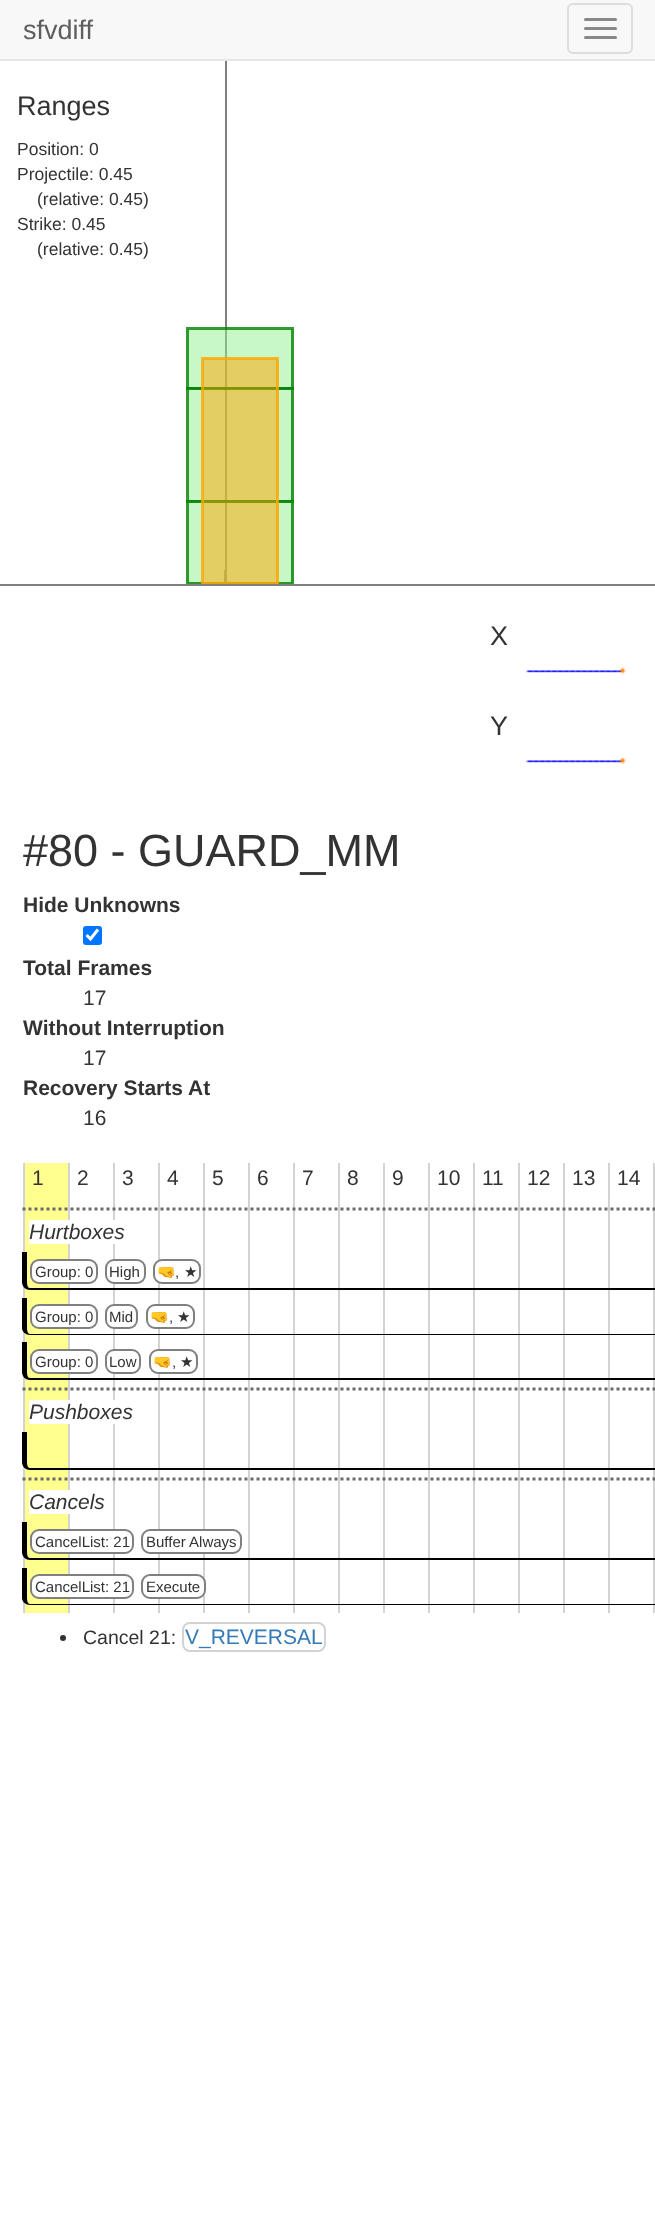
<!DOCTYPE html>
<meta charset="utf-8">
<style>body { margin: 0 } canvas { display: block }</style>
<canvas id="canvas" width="655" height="2228"></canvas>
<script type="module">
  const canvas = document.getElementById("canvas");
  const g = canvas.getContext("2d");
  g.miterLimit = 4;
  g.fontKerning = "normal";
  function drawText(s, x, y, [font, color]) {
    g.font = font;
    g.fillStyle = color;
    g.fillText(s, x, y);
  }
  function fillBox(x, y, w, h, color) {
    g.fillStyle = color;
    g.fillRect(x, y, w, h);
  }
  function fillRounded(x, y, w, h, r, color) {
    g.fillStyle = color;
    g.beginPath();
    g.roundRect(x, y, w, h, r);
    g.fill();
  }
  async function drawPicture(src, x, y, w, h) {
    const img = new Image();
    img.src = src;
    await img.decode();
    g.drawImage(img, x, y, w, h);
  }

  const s1 = ["27px Liberation Sans", "#5E5E5E"];
  const s2 = ["27px Liberation Sans", "#333333"];
  const s3 = ["17.5px Liberation Sans", "#333333"];
  const s4 = ["45px Liberation Sans", "#333333"];
  const s5 = ["bold 21px Liberation Sans", "#333333"];
  const s6 = ["21px Liberation Sans", "#333333"];
  const s7 = ["italic 21px Liberation Sans", "#333333"];
  const s8 = ["15px Liberation Sans", "#333333"];
  const s9 = ["15px Noto Color Emoji", "#333333"];
  const s10 = ["15px DejaVu Sans", "#333333"];
  const s11 = ["19.5px Liberation Sans", "#333333"];
  const s12 = ["21px Liberation Sans", "#337AB7"];

  fillBox(0, 0, 655, 2228, "#FFFFFF");
  fillBox(188, 329, 105, 60, "#C8F7C8");
  fillBox(0, 0, 655, 59, "#F8F8F8");
  fillBox(225, 60, 2, 510, "#808080");
  fillBox(0, 59, 655, 2, "#E7E7E7");
  drawText("sfvdiff", 23, 39, s1);
  g.beginPath();
  g.roundRect(568, 4, 64, 49, 5);
  g.strokeStyle = "#DDDDDD";
  g.lineWidth = 2;
  g.stroke();
  fillRounded(584, 18, 33, 3, 1.5, "#888888");
  fillRounded(584, 27, 33, 3, 1.5, "#888888");
  fillRounded(584, 36, 33, 3, 1.5, "#888888");
  fillBox(0, 584, 655, 2, "#808080");
  drawText("Ranges", 17, 115, s2);
  drawText("Position: 0", 17, 155, s3);
  drawText("Projectile: 0.45", 17, 180, s3);
  drawText("(relative: 0.45)", 37, 205, s3);
  drawText("Strike: 0.45", 17, 230, s3);
  drawText("(relative: 0.45)", 37, 255, s3);
  fillBox(225, 329, 2, 60, "#88B788");
  g.strokeStyle = "rgba(0, 128, 0, 0.8)";
  g.lineWidth = 3;
  g.strokeRect(187.5, 328.5, 105, 60);
  fillBox(188, 389, 105, 112, "rgba(144, 238, 144, 0.5)");
  g.strokeRect(187.5, 388.5, 105, 113);
  fillBox(212, 582, 27, 2, "#808080");
  fillBox(224, 570, 3, 14, "#808080");
  fillBox(188, 501, 105, 83, "rgba(144, 238, 144, 0.5)");
  g.save();
  g.beginPath();
  g.rect(0, 60, 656, 524);
  g.clip();
  g.strokeRect(187.5, 501.5, 105, 82);
  g.restore();
  fillBox(203, 359, 75, 225, "rgba(255, 165, 0, 0.5)");
  g.save();
  g.beginPath();
  g.rect(0, 60, 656, 524);
  g.clip();
  g.strokeStyle = "rgba(255, 165, 0, 0.8)";
  g.strokeRect(202.5, 358.5, 75, 225);
  g.restore();
  drawText("X", 490, 645, s2);
  await drawPicture("pic1.png", 526, 667, 100, 7);
  drawText("Y", 490, 735, s2);
  await drawPicture("pic1.png", 526, 757, 100, 7);
  drawText("#80 - GUARD_MM", 23, 866, s4);
  drawText("Hide Unknowns", 23, 912, s5);
  fillRounded(83, 926, 19, 19, 3, "#0075FF");
  g.beginPath();
  g.moveTo(86.5, 935);
  g.lineTo(90.5, 939);
  g.lineTo(98, 929.5);
  g.strokeStyle = "#FFFFFF";
  g.lineWidth = 3.1;
  g.stroke();
  drawText("Total Frames", 23, 975, s5);
  drawText("17", 83, 1005, s6);
  drawText("Without Interruption", 23, 1035, s5);
  drawText("17", 83, 1065, s6);
  drawText("Recovery Starts At", 23, 1095, s5);
  drawText("16", 83, 1125, s6);
  fillBox(25, 1163, 43, 450, "#FFFF90");
  fillBox(23, 1163, 2, 450, "#D3D3D3");
  drawText("1", 32, 1185, s6);
  fillBox(68, 1163, 2, 450, "#D3D3D3");
  drawText("2", 77, 1185, s6);
  fillBox(113, 1163, 2, 450, "#D3D3D3");
  drawText("3", 122, 1185, s6);
  fillBox(158, 1163, 2, 450, "#D3D3D3");
  drawText("4", 167, 1185, s6);
  fillBox(203, 1163, 2, 450, "#D3D3D3");
  drawText("5", 212, 1185, s6);
  fillBox(248, 1163, 2, 450, "#D3D3D3");
  drawText("6", 257, 1185, s6);
  fillBox(293, 1163, 2, 450, "#D3D3D3");
  drawText("7", 302, 1185, s6);
  fillBox(338, 1163, 2, 450, "#D3D3D3");
  drawText("8", 347, 1185, s6);
  fillBox(383, 1163, 2, 450, "#D3D3D3");
  drawText("9", 392, 1185, s6);
  fillBox(428, 1163, 2, 450, "#D3D3D3");
  drawText("10", 437, 1185, s6);
  fillBox(473, 1163, 2, 450, "#D3D3D3");
  drawText("11", 482, 1185, s6);
  fillBox(518, 1163, 2, 450, "#D3D3D3");
  drawText("12", 527, 1185, s6);
  fillBox(563, 1163, 2, 450, "#D3D3D3");
  drawText("13", 572, 1185, s6);
  fillBox(608, 1163, 2, 450, "#D3D3D3");
  drawText("14", 617, 1185, s6);
  fillBox(653, 1163, 2, 450, "#D3D3D3");
  g.beginPath();
  g.moveTo(22.5, 1209);
  g.lineTo(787.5, 1209);
  g.strokeStyle = "#6A6A6A";
  g.lineWidth = 3;
  g.setLineDash([3, 3]);
  g.stroke();
  fillBox(29, 1220, 86, 24, "#FFFFFF");
  drawText("Hurtboxes", 29, 1239, s7);
  g.fillStyle = "#000000";
  g.beginPath();
  g.moveTo(22, 1252);
  g.lineTo(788, 1252);
  g.lineTo(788, 1282);
  g.bezierCurveTo(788, 1287, 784, 1290, 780, 1290);
  g.lineTo(30, 1290);
  g.bezierCurveTo(26, 1290, 22, 1287, 22, 1282);
  g.closePath();
  g.moveTo(27, 1252);
  g.lineTo(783, 1252);
  g.lineTo(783, 1282);
  g.bezierCurveTo(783, 1286, 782, 1288, 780, 1288);
  g.lineTo(30, 1288);
  g.bezierCurveTo(28, 1288, 27, 1286, 27, 1282);
  g.closePath();
  g.fill("evenodd");
  g.fillStyle = "#FFFFFF";
  g.beginPath();
  g.roundRect(31, 1260, 66, 23, 8);
  g.fill();
  g.strokeStyle = "#808080";
  g.lineWidth = 2;
  g.setLineDash([]);
  g.stroke();
  drawText("Group: 0", 35, 1277, s8);
  g.fillStyle = "#FFFFFF";
  g.beginPath();
  g.roundRect(106, 1260, 39, 23, 8);
  g.fill();
  g.stroke();
  drawText("High", 109, 1277, s8);
  g.fillStyle = "#FFFFFF";
  g.beginPath();
  g.roundRect(154, 1260, 46, 23, 8);
  g.fill();
  g.stroke();
  drawText("🤜", 157, 1277, s9);
  drawText(",", 175, 1277, s8);
  drawText("★", 184, 1277, s10);
  g.fillStyle = "#000000";
  g.beginPath();
  g.moveTo(22, 1298);
  g.lineTo(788, 1298);
  g.lineTo(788, 1328);
  g.bezierCurveTo(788, 1332, 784, 1335, 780, 1335);
  g.lineTo(30, 1335);
  g.bezierCurveTo(26, 1335, 22, 1332, 22, 1328);
  g.closePath();
  g.moveTo(27, 1298);
  g.lineTo(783, 1298);
  g.lineTo(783, 1328);
  g.bezierCurveTo(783, 1331, 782, 1334, 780, 1334);
  g.lineTo(30, 1334);
  g.bezierCurveTo(28, 1334, 27, 1331, 27, 1328);
  g.closePath();
  g.fill("evenodd");
  g.fillStyle = "#FFFFFF";
  g.beginPath();
  g.roundRect(31, 1305, 66, 23, 8);
  g.fill();
  g.stroke();
  drawText("Group: 0", 35, 1322, s8);
  g.fillStyle = "#FFFFFF";
  g.beginPath();
  g.roundRect(106, 1305, 31, 23, 8);
  g.fill();
  g.stroke();
  drawText("Mid", 109, 1322, s8);
  g.fillStyle = "#FFFFFF";
  g.beginPath();
  g.roundRect(147, 1305, 47, 23, 8);
  g.fill();
  g.stroke();
  drawText("🤜", 150, 1322, s9);
  drawText(",", 169, 1322, s8);
  drawText("★", 177, 1322, s10);
  g.fillStyle = "#000000";
  g.beginPath();
  g.moveTo(22, 1342);
  g.lineTo(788, 1342);
  g.lineTo(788, 1372);
  g.bezierCurveTo(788, 1377, 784, 1380, 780, 1380);
  g.lineTo(30, 1380);
  g.bezierCurveTo(26, 1380, 22, 1377, 22, 1372);
  g.closePath();
  g.moveTo(27, 1342);
  g.lineTo(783, 1342);
  g.lineTo(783, 1372);
  g.bezierCurveTo(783, 1376, 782, 1378, 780, 1378);
  g.lineTo(30, 1378);
  g.bezierCurveTo(28, 1378, 27, 1376, 27, 1372);
  g.closePath();
  g.fill("evenodd");
  g.fillStyle = "#FFFFFF";
  g.beginPath();
  g.roundRect(31, 1350, 66, 23, 8);
  g.fill();
  g.stroke();
  drawText("Group: 0", 35, 1367, s8);
  g.fillStyle = "#FFFFFF";
  g.beginPath();
  g.roundRect(106, 1350, 34, 23, 8);
  g.fill();
  g.stroke();
  drawText("Low", 109, 1367, s8);
  g.fillStyle = "#FFFFFF";
  g.beginPath();
  g.roundRect(150, 1350, 47, 23, 8);
  g.fill();
  g.stroke();
  drawText("🤜", 153, 1367, s9);
  drawText(",", 172, 1367, s8);
  drawText("★", 180, 1367, s10);
  g.beginPath();
  g.moveTo(22.5, 1389);
  g.lineTo(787.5, 1389);
  g.strokeStyle = "#6A6A6A";
  g.lineWidth = 3;
  g.setLineDash([3, 3]);
  g.stroke();
  fillBox(29, 1400, 86, 24, "#FFFFFF");
  drawText("Pushboxes", 29, 1419, s7);
  g.fillStyle = "#000000";
  g.beginPath();
  g.moveTo(22, 1432);
  g.lineTo(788, 1432);
  g.lineTo(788, 1462);
  g.bezierCurveTo(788, 1467, 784, 1470, 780, 1470);
  g.lineTo(30, 1470);
  g.bezierCurveTo(26, 1470, 22, 1467, 22, 1462);
  g.closePath();
  g.moveTo(27, 1432);
  g.lineTo(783, 1432);
  g.lineTo(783, 1462);
  g.bezierCurveTo(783, 1466, 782, 1468, 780, 1468);
  g.lineTo(30, 1468);
  g.bezierCurveTo(28, 1468, 27, 1466, 27, 1462);
  g.closePath();
  g.fill("evenodd");
  g.beginPath();
  g.moveTo(22.5, 1479);
  g.lineTo(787.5, 1479);
  g.stroke();
  fillBox(29, 1490, 41, 24, "#FFFFFF");
  drawText("Cancels", 29, 1509, s7);
  g.fillStyle = "#000000";
  g.beginPath();
  g.moveTo(22, 1522);
  g.lineTo(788, 1522);
  g.lineTo(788, 1552);
  g.bezierCurveTo(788, 1557, 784, 1560, 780, 1560);
  g.lineTo(30, 1560);
  g.bezierCurveTo(26, 1560, 22, 1557, 22, 1552);
  g.closePath();
  g.moveTo(27, 1522);
  g.lineTo(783, 1522);
  g.lineTo(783, 1552);
  g.bezierCurveTo(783, 1556, 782, 1558, 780, 1558);
  g.lineTo(30, 1558);
  g.bezierCurveTo(28, 1558, 27, 1556, 27, 1552);
  g.closePath();
  g.fill("evenodd");
  g.fillStyle = "#FFFFFF";
  g.beginPath();
  g.roundRect(31, 1530, 102, 23, 8);
  g.fill();
  g.strokeStyle = "#808080";
  g.lineWidth = 2;
  g.setLineDash([]);
  g.stroke();
  drawText("CancelList: 21", 35, 1547, s8);
  g.fillStyle = "#FFFFFF";
  g.beginPath();
  g.roundRect(142, 1530, 99, 23, 8);
  g.fill();
  g.stroke();
  drawText("Buffer Always", 146, 1547, s8);
  g.fillStyle = "#000000";
  g.beginPath();
  g.moveTo(22, 1568);
  g.lineTo(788, 1568);
  g.lineTo(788, 1598);
  g.bezierCurveTo(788, 1602, 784, 1605, 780, 1605);
  g.lineTo(30, 1605);
  g.bezierCurveTo(26, 1605, 22, 1602, 22, 1598);
  g.closePath();
  g.moveTo(27, 1568);
  g.lineTo(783, 1568);
  g.lineTo(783, 1598);
  g.bezierCurveTo(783, 1601, 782, 1604, 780, 1604);
  g.lineTo(30, 1604);
  g.bezierCurveTo(28, 1604, 27, 1601, 27, 1598);
  g.closePath();
  g.fill("evenodd");
  g.fillStyle = "#FFFFFF";
  g.beginPath();
  g.roundRect(31, 1575, 102, 23, 8);
  g.fill();
  g.stroke();
  drawText("CancelList: 21", 35, 1592, s8);
  g.fillStyle = "#FFFFFF";
  g.beginPath();
  g.roundRect(142, 1575, 63, 23, 8);
  g.fill();
  g.stroke();
  drawText("Execute", 146, 1592, s8);
  g.beginPath();
  g.arc(63, 1638, 3, 0, Math.PI * 2);
  g.fill();
  drawText("Cancel 21:", 83, 1644, s11);
  g.beginPath();
  g.roundRect(183, 1623, 142, 28, 7);
  g.strokeStyle = "#D3D3D3";
  g.stroke();
  drawText("V_REVERSAL", 185, 1644, s12);
</script>
